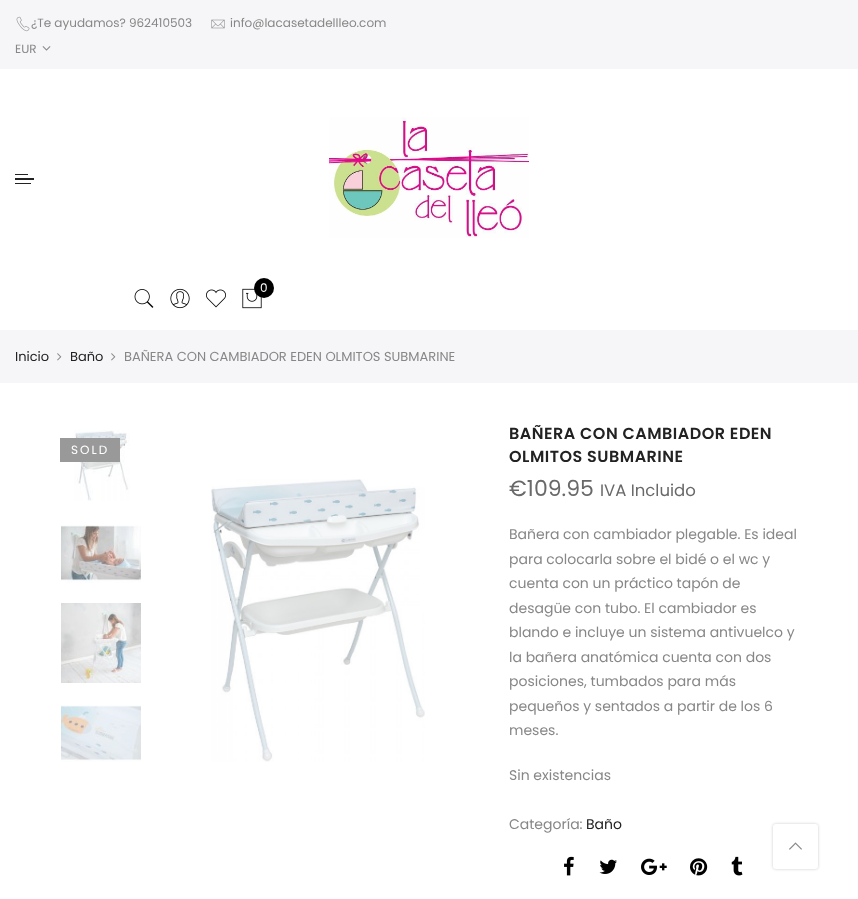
<!DOCTYPE html>
<meta charset="utf-8">
<style>body { margin: 0 } canvas { display: block }</style>
<canvas id="canvas" width="858" height="899"></canvas>
<script type="module">
  const canvas = document.getElementById("canvas");
  const g = canvas.getContext("2d");
  g.miterLimit = 4;
  g.fontKerning = "normal";
  function drawText(s, x, y, [font, color]) {
    g.font = font;
    g.fillStyle = color;
    g.fillText(s, x, y);
  }
  function fillBox(x, y, w, h, color) {
    g.fillStyle = color;
    g.fillRect(x, y, w, h);
  }
  function fillRounded(x, y, w, h, r, color) {
    g.fillStyle = color;
    g.beginPath();
    g.roundRect(x, y, w, h, r);
    g.fill();
  }
  async function drawPicture(src, x, y, w, h) {
    const img = new Image();
    img.src = src;
    await img.decode();
    g.drawImage(img, x, y, w, h);
  }

  const s1 = ["12px Poppins", "#878787"];
  const s2 = ["12px Poppins", "#FFFFFF"];
  const s3 = ["13px Poppins", "#222222"];
  const s4 = ["13px Poppins", "#878787"];
  const s5 = ["600 16px Poppins", "#222222"];
  const s6 = ["22px Poppins", "#696969"];
  const s7 = ["16.5px Poppins", "#696969"];
  const s8 = ["14px Poppins", "#878787"];
  const s9 = ["14px Poppins", "#222222"];

  fillBox(0, 0, 858, 899, "#FFFFFF");
  fillBox(0, 0, 858, 69, "#F6F6F8");
  await drawPicture("pic1.png", 16, 16, 14, 16);
  drawText("¿Te ayudamos? 962410503", 31, 27, s1);
  await drawPicture("pic2.png", 211, 19, 14, 10);
  drawText("info@lacasetadellleo.com", 230, 27, s1);
  drawText("EUR", 15, 53, s1);
  await drawPicture("pic3.png", 42, 46, 9, 5);
  fillBox(15, 174, 13, 1, "#222222");
  fillBox(15, 178, 19, 2, "#222222");
  fillBox(15, 183, 16, 1, "#222222");
  await drawPicture("pic4.png", 329, 117, 200, 121);
  await drawPicture("pic5.png", 134, 289, 20, 19);
  await drawPicture("pic6.png", 170, 288, 20, 21);
  await drawPicture("pic7.png", 206, 289, 20, 19);
  await drawPicture("pic8.png", 242, 288, 20, 21);
  g.fillStyle = "#000000";
  g.beginPath();
  g.arc(264, 288, 10, 0, Math.PI * 2);
  g.fill();
  drawText("0", 260, 292, s2);
  fillBox(0, 330, 858, 53, "#F6F6F8");
  drawText("Inicio", 15, 361, s3);
  await drawPicture("pic9.png", 57, 353, 5, 8);
  drawText("Baño", 70, 361, s3);
  await drawPicture("pic9.png", 111, 353, 5, 8);
  drawText("BAÑERA CON CAMBIADOR EDEN OLMITOS SUBMARINE", 124, 361, s4);
  await drawPicture("pic10.png", 74, 430, 56, 71);
  await drawPicture("pic11.png", 61, 525, 80, 58);
  await drawPicture("pic12.png", 61, 603, 80, 80);
  await drawPicture("pic13.png", 61, 705, 80, 57);
  await drawPicture("pic14.png", 211, 479, 214, 283);
  fillBox(60, 438, 60, 24, "#999999");
  g.letterSpacing = "2px";
  drawText("SOLD", 71, 454, s2);
  g.letterSpacing = "0.5px";
  drawText("BAÑERA CON CAMBIADOR EDEN", 509, 439, s5);
  drawText("OLMITOS SUBMARINE", 509, 462, s5);
  g.letterSpacing = "0px";
  drawText("€109.95", 509, 496, s6);
  drawText("IVA Incluido", 600, 496, s7);
  drawText("Bañera con cambiador plegable. Es ideal", 509, 539, s8);
  drawText("para colocarla sobre el bidé o el wc y", 509, 564, s8);
  drawText("cuenta con un práctico tapón de", 509, 588, s8);
  drawText("desagüe con tubo. El cambiador es", 509, 613, s8);
  drawText("blando e incluye un sistema antivuelco y", 509, 637, s8);
  drawText("la bañera anatómica cuenta con dos", 509, 662, s8);
  drawText("posiciones, tumbados para más", 509, 686, s8);
  drawText("pequeños y sentados a partir de los 6", 509, 711, s8);
  drawText("meses.", 509, 735, s8);
  drawText("Sin existencias", 509, 780, s8);
  drawText("Categoría:", 509, 829, s8);
  drawText("Baño", 586, 829, s9);
  await drawPicture("pic15.png", 564, 856, 10, 20);
  await drawPicture("pic16.png", 599, 859, 18, 15);
  await drawPicture("pic17.png", 641, 858, 26, 17);
  await drawPicture("pic18.png", 690, 858, 18, 18);
  await drawPicture("pic19.png", 731, 856, 12, 20);
  g.fillStyle = "rgba(0, 0, 0, 0.2)";
  g.filter = "blur(1.5px)";
  g.beginPath();
  g.roundRect(773, 824, 45, 45, 3);
  g.fill();
  g.filter = "none";
  fillRounded(773, 824, 45, 45, 3, "#FFFFFF");
  await drawPicture("pic20.png", 789, 842, 13, 8);
</script>
